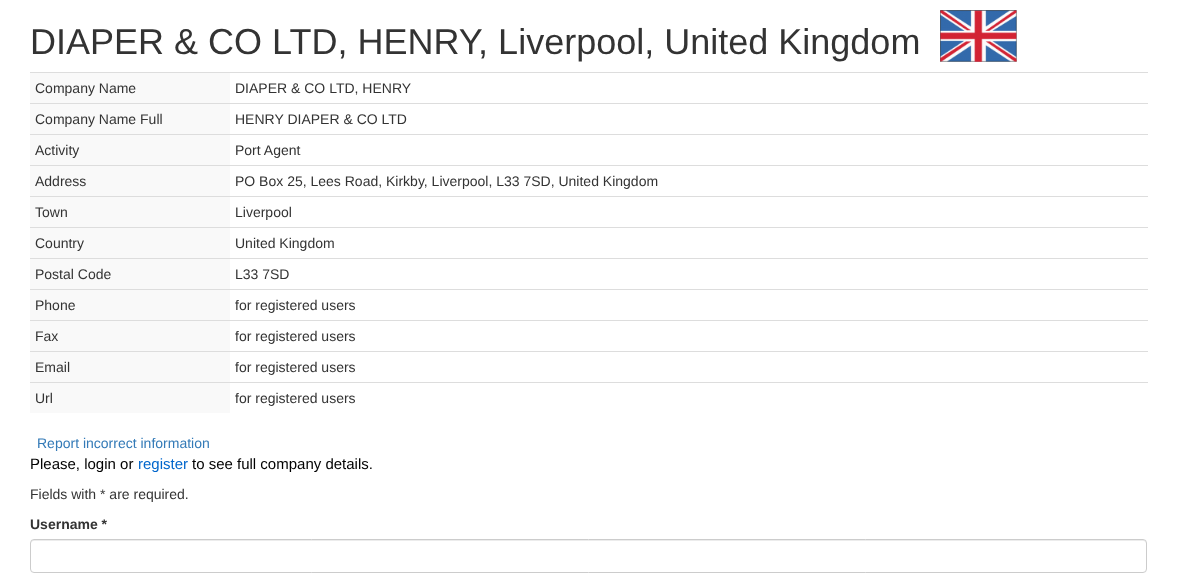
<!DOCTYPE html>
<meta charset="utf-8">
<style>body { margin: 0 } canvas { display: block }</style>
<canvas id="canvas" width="1177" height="580"></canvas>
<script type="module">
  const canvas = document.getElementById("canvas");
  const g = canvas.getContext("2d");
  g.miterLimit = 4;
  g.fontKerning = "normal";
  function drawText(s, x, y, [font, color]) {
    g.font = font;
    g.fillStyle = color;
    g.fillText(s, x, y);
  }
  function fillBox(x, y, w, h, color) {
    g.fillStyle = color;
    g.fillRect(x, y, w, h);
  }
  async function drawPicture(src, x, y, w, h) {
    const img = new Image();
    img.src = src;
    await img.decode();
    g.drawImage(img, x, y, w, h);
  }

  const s1 = ["36px Liberation Sans", "#333333"];
  const s2 = ["14px Liberation Sans", "#333333"];
  const s3 = ["14px Liberation Sans", "#337AB7"];
  const s4 = ["15px Liberation Sans", "#000000"];
  const s5 = ["15px Liberation Sans", "#0066CC"];
  const s6 = ["bold 14px Liberation Sans", "#333333"];

  fillBox(0, 0, 1177, 580, "#FFFFFF");
  drawText("DIAPER & CO LTD, HENRY, Liverpool, United Kingdom", 30, 54, s1);
  await drawPicture("pic1.png", 940, 10, 77, 52);
  fillBox(30, 73, 200, 30, "#F9F9F9");
  drawText("Company Name", 35, 93, s2);
  fillBox(30, 72, 1118, 1, "#DDDDDD");
  drawText("DIAPER & CO LTD, HENRY", 235, 93, s2);
  fillBox(30, 104, 200, 30, "#F9F9F9");
  drawText("Company Name Full", 35, 124, s2);
  fillBox(30, 103, 1118, 1, "#DDDDDD");
  drawText("HENRY DIAPER & CO LTD", 235, 124, s2);
  fillBox(30, 135, 200, 30, "#F9F9F9");
  drawText("Activity", 35, 155, s2);
  fillBox(30, 134, 1118, 1, "#DDDDDD");
  drawText("Port Agent", 235, 155, s2);
  fillBox(30, 166, 200, 30, "#F9F9F9");
  drawText("Address", 35, 186, s2);
  fillBox(30, 165, 1118, 1, "#DDDDDD");
  drawText("PO Box 25, Lees Road, Kirkby, Liverpool, L33 7SD, United Kingdom", 235, 186, s2);
  fillBox(30, 197, 200, 30, "#F9F9F9");
  drawText("Town", 35, 217, s2);
  fillBox(30, 196, 1118, 1, "#DDDDDD");
  drawText("Liverpool", 235, 217, s2);
  fillBox(30, 228, 200, 30, "#F9F9F9");
  drawText("Country", 35, 248, s2);
  fillBox(30, 227, 1118, 1, "#DDDDDD");
  drawText("United Kingdom", 235, 248, s2);
  fillBox(30, 259, 200, 30, "#F9F9F9");
  drawText("Postal Code", 35, 279, s2);
  fillBox(30, 258, 1118, 1, "#DDDDDD");
  drawText("L33 7SD", 235, 279, s2);
  fillBox(30, 290, 200, 30, "#F9F9F9");
  drawText("Phone", 35, 310, s2);
  fillBox(30, 289, 1118, 1, "#DDDDDD");
  drawText("for registered users", 235, 310, s2);
  fillBox(30, 321, 200, 30, "#F9F9F9");
  drawText("Fax", 35, 341, s2);
  fillBox(30, 320, 1118, 1, "#DDDDDD");
  drawText("for registered users", 235, 341, s2);
  fillBox(30, 352, 200, 30, "#F9F9F9");
  drawText("Email", 35, 372, s2);
  fillBox(30, 351, 1118, 1, "#DDDDDD");
  drawText("for registered users", 235, 372, s2);
  fillBox(30, 383, 200, 30, "#F9F9F9");
  drawText("Url", 35, 403, s2);
  fillBox(30, 382, 1118, 1, "#DDDDDD");
  drawText("for registered users", 235, 403, s2);
  drawText("Report incorrect information", 37, 448, s3);
  drawText("Please, login or", 30, 469, s4);
  drawText("register", 138, 469, s5);
  drawText("to see full company details.", 192, 469, s4);
  drawText("Fields with * are required.", 30, 499, s2);
  drawText("Username *", 30, 529, s6);
  g.fillStyle = "#ECECEC";
  g.beginPath();
  g.moveTo(34, 541);
  g.lineTo(1143, 541);
  g.bezierCurveTo(1145, 541, 1146, 542, 1146, 544);
  g.lineTo(1146, 543);
  g.bezierCurveTo(1146, 541, 1145, 540, 1143, 540);
  g.lineTo(34, 540);
  g.bezierCurveTo(32, 540, 31, 541, 31, 543);
  g.lineTo(31, 544);
  g.bezierCurveTo(31, 542, 32, 541, 34, 541);
  g.closePath();
  g.fill();
  g.beginPath();
  g.roundRect(30.5, 539.5, 1116, 33, 3.5);
  g.strokeStyle = "#CCCCCC";
  g.stroke();
</script>
